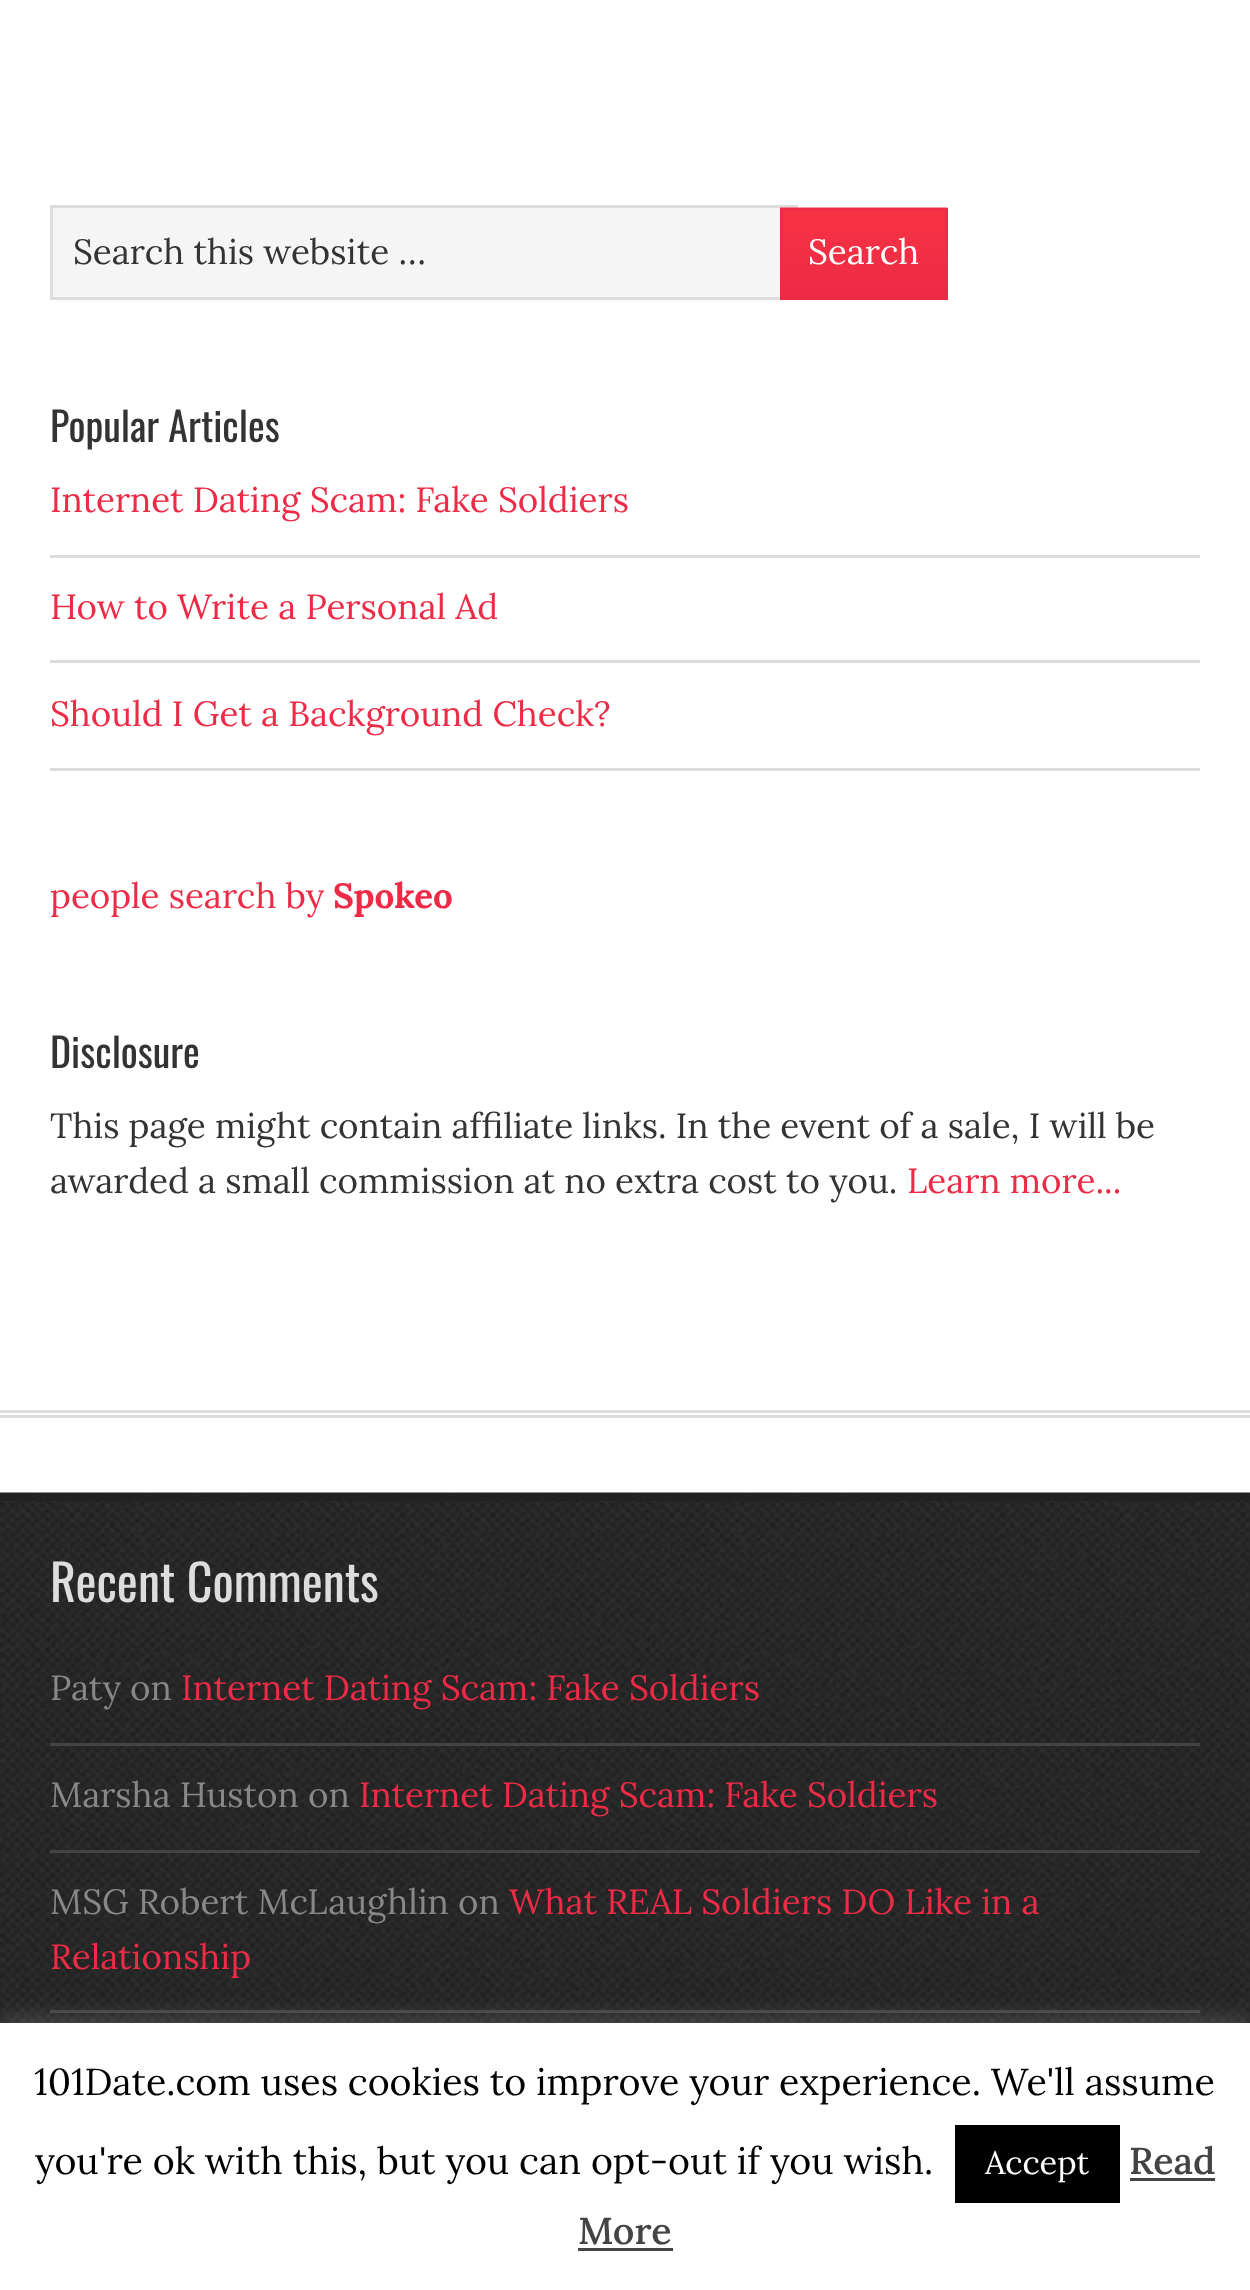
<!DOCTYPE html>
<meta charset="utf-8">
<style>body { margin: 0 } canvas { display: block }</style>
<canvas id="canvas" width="1250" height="2290"></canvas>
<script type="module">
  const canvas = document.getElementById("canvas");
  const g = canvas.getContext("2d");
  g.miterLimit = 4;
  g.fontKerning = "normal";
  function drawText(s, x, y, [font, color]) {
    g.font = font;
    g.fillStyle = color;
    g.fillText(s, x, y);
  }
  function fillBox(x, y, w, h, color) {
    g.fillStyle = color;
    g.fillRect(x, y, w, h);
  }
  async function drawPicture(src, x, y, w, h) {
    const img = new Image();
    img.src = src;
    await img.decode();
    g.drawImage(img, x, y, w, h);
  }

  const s1 = ["35px Lora", "#333333"];
  const s2 = ["35px Lora", "#FFFFFF"];
  const s3 = ["40px Oswald", "#333333"];
  const s4 = ["35px Lora", "#ED2B46"];
  const s5 = ["bold 35px Lora", "#ED2B46"];
  const s6 = ["50px Oswald", "#DDDDDD"];
  const s7 = ["35px Lora", "#888888"];
  const s8 = ["37.5px Lora", "#000000"];
  const s9 = ["32.5px Lora", "#FFFFFF"];
  const s10 = ["500 37.5px Lora", "#444444"];

  fillBox(0, 0, 1250, 2290, "#FFFFFF");
  fillBox(0, 1410, 1250, 3, "#DDDDDD");
  fillBox(0, 1415, 1250, 3, "#DDDDDD");
  fillBox(53, 208, 727, 89, "#F5F5F5");
  g.strokeStyle = "#DDDDDD";
  g.lineWidth = 3;
  g.strokeRect(51.5, 206.5, 745, 92);
  drawText("Search this website …", 73, 264, s1);
  await drawPicture("pic1.png", 780, 207, 168, 90);
  g.strokeStyle = "#ED2B46";
  g.strokeRect(781.5, 209.5, 165, 89);
  drawText("Search", 808, 264, s2);
  drawText("Popular Articles", 50, 442, s3);
  fillBox(50, 555, 1150, 3, "#DDDDDD");
  drawText("Internet Dating Scam: Fake Soldiers", 50, 512, s4);
  fillBox(50, 660, 1150, 3, "#DDDDDD");
  drawText("How to Write a Personal Ad", 50, 619, s4);
  fillBox(50, 768, 1150, 3, "#DDDDDD");
  drawText("Should I Get a Background Check?", 50, 726, s4);
  drawText("people search by", 50, 908, s4);
  drawText("Spokeo", 333, 908, s5);
  drawText("Disclosure", 50, 1068, s3);
  drawText("This page might contain affiliate links. In the event of a sale, I will be", 50, 1138, s1);
  drawText("awarded a small commission at no extra cost to you.", 50, 1193, s1);
  drawText("Learn more...", 907, 1193, s4);
  await drawPicture("pic2.png", 0, 1492, 1250, 531);
  fillBox(0, 1493, 1250, 8, "#222222");
  drawText("Recent Comments", 50, 1602, s6);
  fillBox(50, 1743, 1150, 3, "#444444");
  drawText("Paty on", 50, 1700, s7);
  drawText("Internet Dating Scam: Fake Soldiers", 181, 1700, s4);
  fillBox(50, 1850, 1150, 3, "#444444");
  drawText("Marsha Huston on", 50, 1807, s7);
  drawText("Internet Dating Scam: Fake Soldiers", 359, 1807, s4);
  fillBox(50, 2010, 1150, 3, "#444444");
  drawText("MSG Robert McLaughlin on", 50, 1914, s7);
  drawText("What REAL Soldiers DO Like in a", 509, 1914, s4);
  drawText("Relationship", 50, 1969, s4);
  g.fillStyle = "rgba(172, 171, 171, 0.3)";
  g.filter = "blur(12.5px)";
  g.beginPath();
  g.rect(0, 2020, 1250, 268);
  g.fill();
  g.filter = "none";
  fillBox(0, 2023, 1250, 267, "#FFFFFF");
  drawText("101Date.com uses cookies to improve your experience. We'll assume", 34, 2095, s8);
  drawText("you're ok with this, but you can opt-out if you wish.", 35, 2174, s8);
  fillBox(955, 2125, 165, 78, "#000000");
  drawText("Accept", 985, 2174, s9);
  drawText("Read", 1129, 2174, s10);
  fillBox(1130, 2178, 85, 3, "#444444");
  drawText("More", 578, 2244, s10);
  fillBox(578, 2248, 95, 3, "#444444");
</script>
